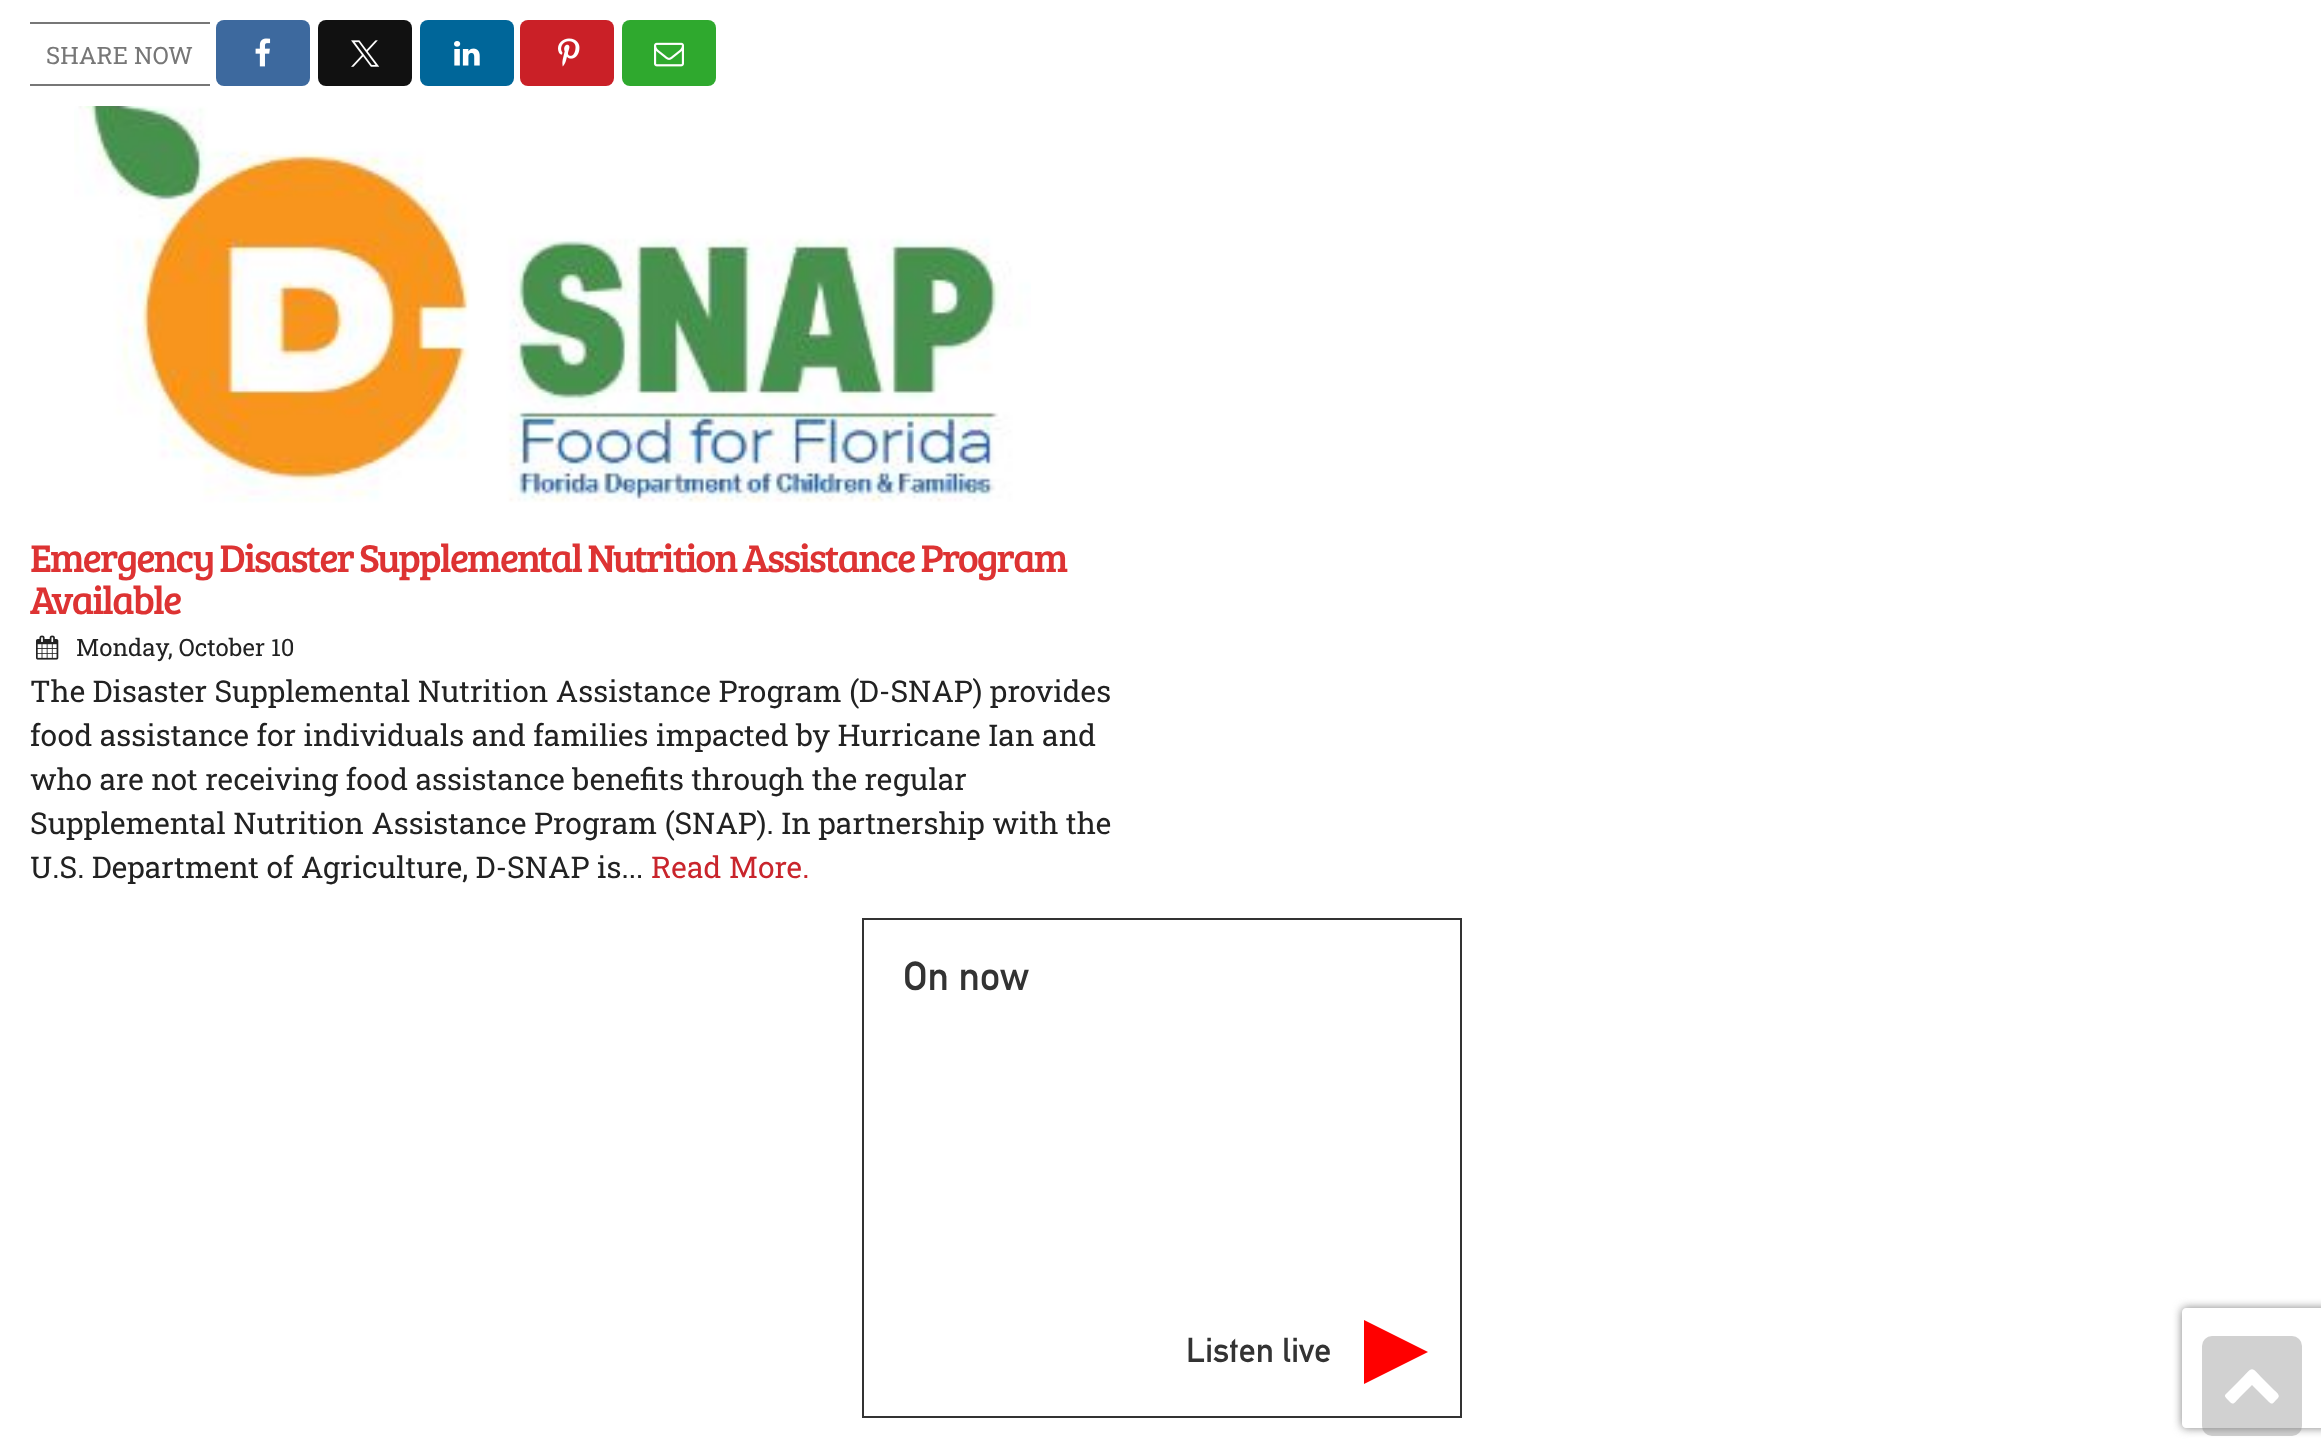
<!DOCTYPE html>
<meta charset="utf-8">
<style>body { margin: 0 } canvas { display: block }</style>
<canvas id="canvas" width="2321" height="1455"></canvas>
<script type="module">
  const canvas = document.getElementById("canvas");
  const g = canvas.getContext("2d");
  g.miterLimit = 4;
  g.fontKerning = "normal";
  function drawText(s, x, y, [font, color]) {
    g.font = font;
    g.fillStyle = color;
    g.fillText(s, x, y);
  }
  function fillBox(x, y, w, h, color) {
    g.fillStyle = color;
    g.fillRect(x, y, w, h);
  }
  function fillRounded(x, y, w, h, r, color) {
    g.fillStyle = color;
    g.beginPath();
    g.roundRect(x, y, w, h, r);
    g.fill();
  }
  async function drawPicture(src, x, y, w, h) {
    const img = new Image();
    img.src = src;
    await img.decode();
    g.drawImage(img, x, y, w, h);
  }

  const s1 = ["24px Roboto Slab", "#777777"];
  const s2 = ["40px Bree Serif", "#DD3333"];
  const s3 = ["24px Roboto Slab", "#222222"];
  const s4 = ["30px Roboto Slab", "#222222"];
  const s5 = ["30px Roboto Slab", "#C9252C"];
  const s6 = ["40px 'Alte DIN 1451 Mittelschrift'", "#333333"];
  const s7 = ["34px 'Alte DIN 1451 Mittelschrift'", "#333333"];

  fillBox(0, 0, 2321, 1455, "#FFFFFF");
  fillBox(30, 22, 180, 2, "#777777");
  fillBox(30, 84, 180, 2, "#777777");
  drawText("SHARE NOW", 46, 64, s1);
  fillRounded(216, 20, 94, 66, 8, "#3D699E");
  await drawPicture("pic1.png", 255, 38, 16, 29);
  fillRounded(318, 20, 94, 66, 8, "#111111");
  await drawPicture("pic2.png", 351, 40, 29, 27);
  fillRounded(420, 20, 94, 66, 8, "#006699");
  await drawPicture("pic3.png", 454, 41, 26, 25);
  fillRounded(520, 20, 94, 66, 8, "#CA2027");
  await drawPicture("pic4.png", 558, 38, 22, 29);
  fillRounded(622, 20, 94, 66, 8, "#2FA92E");
  await drawPicture("pic5.png", 654, 42, 30, 25);
  await drawPicture("pic6.png", 74, 106, 957, 397);
  g.letterSpacing = "-2px";
  drawText("Emergency Disaster Supplemental Nutrition Assistance Program", 30, 572, s2);
  drawText("Available", 30, 614, s2);
  await drawPicture("pic7.png", 36, 635, 23, 25);
  g.letterSpacing = "0px";
  drawText("Monday, October 10", 76, 656, s3);
  drawText("The Disaster Supplemental Nutrition Assistance Program (D-SNAP) provides", 30, 702, s4);
  drawText("food assistance for individuals and families impacted by Hurricane Ian and", 30, 746, s4);
  drawText("who are not receiving food assistance benefits through the regular", 30, 790, s4);
  drawText("Supplemental Nutrition Assistance Program (SNAP). In partnership with the", 30, 834, s4);
  drawText("U.S. Department of Agriculture, D-SNAP is...", 30, 878, s4);
  drawText("Read More.", 651, 878, s5);
  g.strokeStyle = "#333333";
  g.lineWidth = 2;
  g.strokeRect(863, 919, 598, 498);
  drawText("On now", 903, 990, s6);
  drawText("Listen live", 1186, 1362, s7);
  g.fillStyle = "#FF0000";
  g.beginPath();
  g.moveTo(1364, 1384);
  g.lineTo(1364, 1320);
  g.lineTo(1428, 1352);
  g.closePath();
  g.fill();
  fillRounded(2202, 1336, 100, 100, 10, "#D1D1D1");
  g.fillStyle = "#FFFFFF";
  g.beginPath();
  g.moveTo(2278, 1398);
  g.bezierCurveTo(2272, 1404, 2273, 1406, 2267, 1400);
  g.lineTo(2252, 1385);
  g.lineTo(2240, 1397);
  g.bezierCurveTo(2234, 1403, 2234, 1406, 2229, 1401);
  g.bezierCurveTo(2223, 1395, 2224, 1396, 2230, 1390);
  g.lineTo(2238, 1382);
  g.bezierCurveTo(2255, 1365, 2249, 1365, 2266, 1382);
  g.lineTo(2274, 1390);
  g.bezierCurveTo(2275, 1391, 2281, 1395, 2278, 1398);
  g.closePath();
  g.fill();
  g.save();
  g.beginPath();
  g.moveTo(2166, 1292);
  g.lineTo(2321, 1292);
  g.lineTo(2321, 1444);
  g.lineTo(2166, 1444);
  g.closePath();
  g.moveTo(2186, 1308);
  g.lineTo(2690, 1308);
  g.bezierCurveTo(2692, 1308, 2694, 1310, 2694, 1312);
  g.lineTo(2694, 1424);
  g.bezierCurveTo(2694, 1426, 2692, 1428, 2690, 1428);
  g.lineTo(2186, 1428);
  g.bezierCurveTo(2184, 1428, 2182, 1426, 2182, 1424);
  g.lineTo(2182, 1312);
  g.bezierCurveTo(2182, 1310, 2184, 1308, 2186, 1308);
  g.closePath();
  g.clip("evenodd");
  g.fillStyle = "#808080";
  g.filter = "blur(5px)";
  g.beginPath();
  g.roundRect(2182, 1308, 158, 120, 4);
  g.fill();
  g.filter = "none";
  g.restore();
</script>
